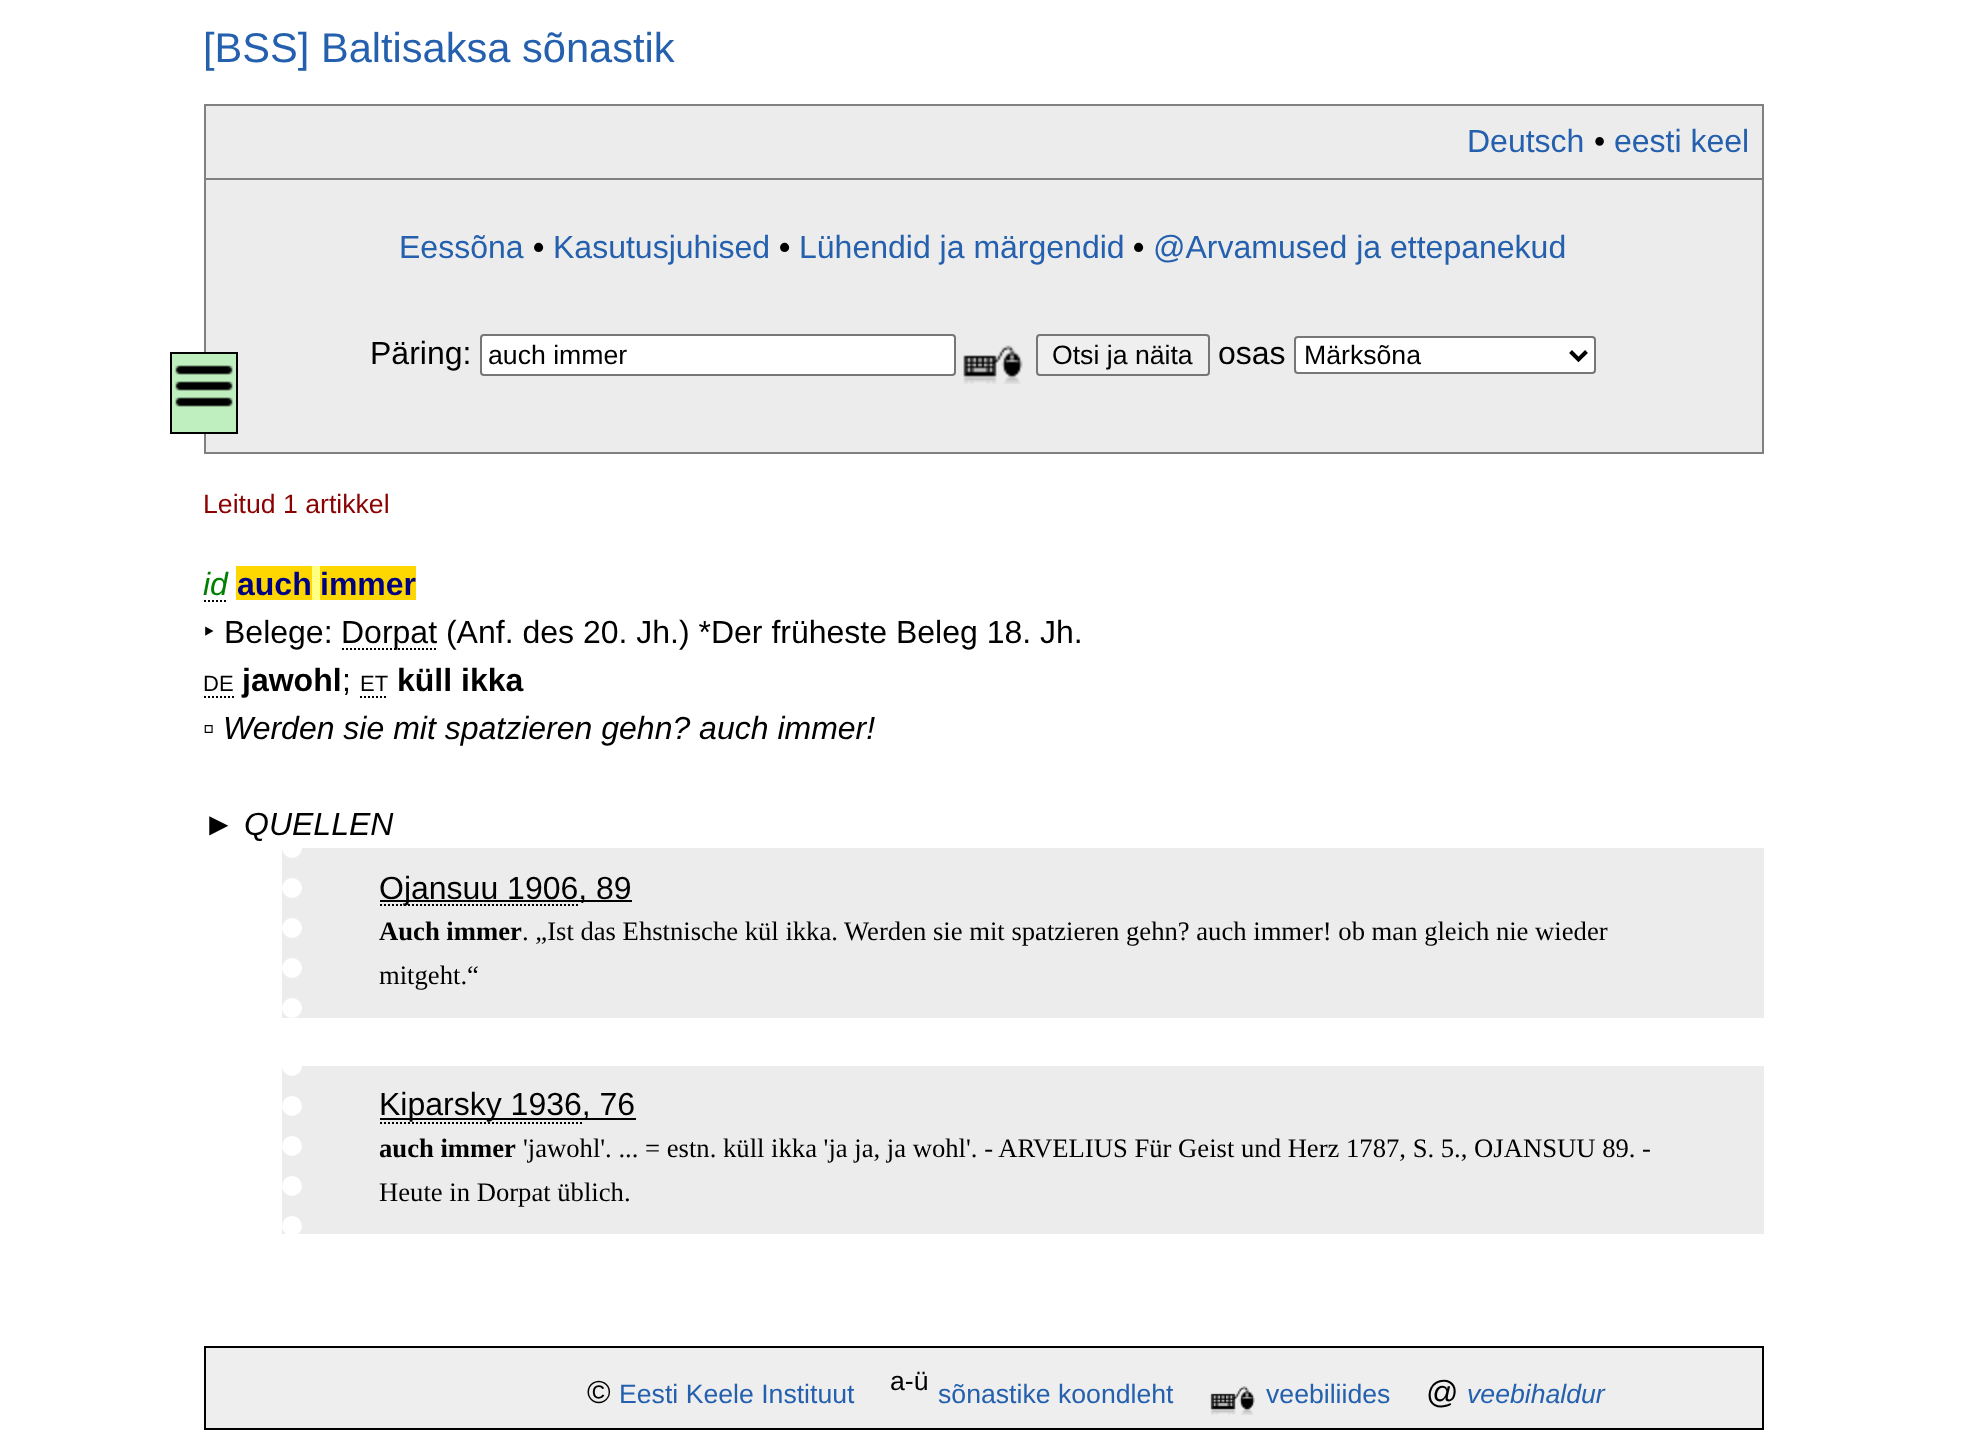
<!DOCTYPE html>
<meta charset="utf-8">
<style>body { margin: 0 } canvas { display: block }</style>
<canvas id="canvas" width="1985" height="1449"></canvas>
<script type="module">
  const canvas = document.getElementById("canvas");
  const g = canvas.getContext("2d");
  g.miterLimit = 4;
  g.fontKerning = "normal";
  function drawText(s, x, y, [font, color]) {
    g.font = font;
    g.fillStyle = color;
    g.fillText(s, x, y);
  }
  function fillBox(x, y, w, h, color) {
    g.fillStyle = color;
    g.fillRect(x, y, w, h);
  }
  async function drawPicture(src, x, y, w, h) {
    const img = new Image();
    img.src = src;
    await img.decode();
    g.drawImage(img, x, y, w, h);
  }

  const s1 = ["41.6px Liberation Sans", "#2460AD"];
  const s2 = ["32px Liberation Sans", "#2460AD"];
  const s3 = ["32px Liberation Sans", "#000000"];
  const s4 = ["bold 32px Liberation Sans", "#000000"];
  const s5 = ["26.65px Liberation Sans", "#000000"];
  const s6 = ["26.65px Liberation Sans", "#8B0000"];
  const s7 = ["italic 32px Liberation Sans", "#008000"];
  const s8 = ["bold 32px Liberation Sans", "#000080"];
  const s9 = ["32px Noto Sans", "#000000"];
  const s10 = ["22px Liberation Sans", "#000000"];
  const s11 = ["italic 32px Liberation Sans", "#000000"];
  const s12 = ["bold 26.65px Liberation Serif", "#000000"];
  const s13 = ["26.65px Liberation Serif", "#000000"];
  const s14 = ["26.65px Liberation Sans", "#2460AD"];
  const s15 = ["italic 26.65px Liberation Sans", "#2460AD"];

  fillBox(0, 0, 1985, 1449, "#FFFFFF");
  drawText("[BSS] Baltisaksa sõnastik", 203, 62, s1);
  fillBox(206, 106, 1556, 346, "#ECECEC");
  fillBox(204, 104, 1560, 2, "#808080");
  fillBox(1762, 104, 2, 350, "#808080");
  fillBox(204, 452, 1560, 2, "#808080");
  fillBox(204, 104, 2, 350, "#808080");
  drawText("Deutsch", 1467, 152, s2);
  drawText("•", 1594, 152, s3);
  drawText("eesti keel", 1614, 152, s2);
  fillBox(204, 178, 1560, 2, "#808080");
  drawText("Eessõna", 399, 258, s2);
  drawText("•", 533, 258, s4);
  drawText("Kasutusjuhised", 553, 258, s2);
  drawText("•", 779, 258, s4);
  drawText("Lühendid ja märgendid", 799, 258, s2);
  drawText("•", 1133, 258, s4);
  drawText("@Arvamused ja ettepanekud", 1153, 258, s2);
  g.fillStyle = "#BFEEBF";
  g.beginPath();
  g.rect(171, 353, 66, 80);
  g.fill();
  g.strokeStyle = "#000000";
  g.lineWidth = 2;
  g.stroke();
  await drawPicture("pic1.png", 175, 365, 58, 42);
  drawText("Päring:", 370, 364, s3);
  g.fillStyle = "#FFFFFF";
  g.beginPath();
  g.roundRect(481, 335, 474, 40, 3);
  g.fill();
  g.strokeStyle = "#767676";
  g.stroke();
  drawText("auch immer", 488, 364, s5);
  await drawPicture("pic2.png", 963, 345, 60, 39);
  g.fillStyle = "#EFEFEF";
  g.beginPath();
  g.roundRect(1037, 335, 172, 40, 3);
  g.fill();
  g.stroke();
  drawText("Otsi ja näita", 1052, 364, s5);
  drawText("osas", 1218, 364, s3);
  g.fillStyle = "#FFFFFF";
  g.beginPath();
  g.roundRect(1295, 337, 300, 36, 3);
  g.fill();
  g.stroke();
  g.beginPath();
  g.moveTo(1570.5, 351.5);
  g.lineTo(1578.5, 359.5);
  g.lineTo(1586.5, 351.5);
  g.strokeStyle = "#000000";
  g.lineWidth = 4;
  g.stroke();
  drawText("Märksõna", 1304, 364, s5);
  drawText("Leitud 1 artikkel", 203, 513, s6);
  drawText("id", 203, 595, s7);
  g.beginPath();
  g.moveTo(204, 601);
  g.lineTo(228, 601);
  g.lineWidth = 2;
  g.setLineDash([2, 2]);
  g.stroke();
  fillBox(236, 566, 76, 34, "#FFD700");
  drawText("auch", 237, 595, s8);
  fillBox(312, 566, 8, 34, "#FFFF80");
  fillBox(320, 566, 96, 34, "#FFD700");
  drawText("immer", 320, 595, s8);
  drawText("‣", 203, 643, s9);
  drawText("Belege:", 224, 643, s3);
  g.beginPath();
  g.moveTo(342, 649);
  g.lineTo(438, 649);
  g.stroke();
  drawText("Dorpat (Anf. des 20. Jh.) *Der früheste Beleg 18. Jh.", 341, 643, s3);
  drawText("DE", 203, 691, s10);
  g.beginPath();
  g.moveTo(204, 697);
  g.lineTo(234, 697);
  g.stroke();
  drawText("jawohl", 242, 691, s4);
  drawText(";", 342, 691, s3);
  drawText("ET", 360, 691, s10);
  g.beginPath();
  g.moveTo(360, 697);
  g.lineTo(388, 697);
  g.stroke();
  drawText("küll ikka", 397, 691, s4);
  drawText("▫", 203, 739, s3);
  drawText("Werden sie mit spatzieren gehn? auch immer!", 223, 739, s11);
  drawText("►", 203, 835, s3);
  fillBox(282, 848, 1482, 170, "#ECECEC");
  g.beginPath();
  g.moveTo(292, 848);
  g.lineTo(292, 1018);
  g.strokeStyle = "#FFFFFF";
  g.lineWidth = 20;
  g.lineCap = "round";
  g.setLineDash([0, 40]);
  g.stroke();
  drawText("QUELLEN", 244, 835, s11);
  g.beginPath();
  g.moveTo(380, 905);
  g.lineTo(578, 905);
  g.strokeStyle = "#000000";
  g.lineWidth = 2;
  g.lineCap = "butt";
  g.setLineDash([2, 2]);
  g.stroke();
  fillBox(380, 900, 252, 2, "#000000");
  drawText("Ojansuu 1906, 89", 379, 899, s3);
  drawText("Auch immer", 379, 940, s12);
  drawText(". „Ist das Ehstnische kül ikka. Werden sie mit spatzieren gehn? auch immer! ob man gleich nie wieder", 522, 940, s13);
  drawText("mitgeht.“", 379, 984, s13);
  fillBox(282, 1066, 1482, 168, "#ECECEC");
  g.beginPath();
  g.moveTo(292, 1066);
  g.lineTo(292, 1234);
  g.strokeStyle = "#FFFFFF";
  g.lineWidth = 20;
  g.lineCap = "round";
  g.setLineDash([0, 40]);
  g.stroke();
  fillBox(380, 1118, 256, 2, "#000000");
  drawText("Kiparsky 1936, 76", 379, 1115, s3);
  g.beginPath();
  g.moveTo(380, 1123);
  g.lineTo(582, 1123);
  g.strokeStyle = "#000000";
  g.lineWidth = 2;
  g.lineCap = "butt";
  g.setLineDash([2, 2]);
  g.stroke();
  drawText("auch immer", 379, 1157, s12);
  drawText("'jawohl'. ... = estn. küll ikka 'ja ja, ja wohl'. - ARVELIUS Für Geist und Herz 1787, S. 5., OJANSUU 89. -", 523, 1157, s13);
  drawText("Heute in Dorpat üblich.", 379, 1201, s13);
  g.fillStyle = "#EEEEEE";
  g.beginPath();
  g.rect(205, 1347, 1558, 82);
  g.fill();
  g.setLineDash([]);
  g.stroke();
  drawText("©", 587, 1403, s3);
  drawText("Eesti Keele Instituut", 619, 1403, s14);
  drawText("a-ü", 890, 1390, s5);
  drawText("sõnastike koondleht", 938, 1403, s14);
  await drawPicture("pic3.png", 1210, 1386, 45, 29);
  drawText("veebiliides", 1266, 1403, s14);
  drawText("@", 1426, 1403, s3);
  drawText("veebihaldur", 1467, 1403, s15);
</script>
